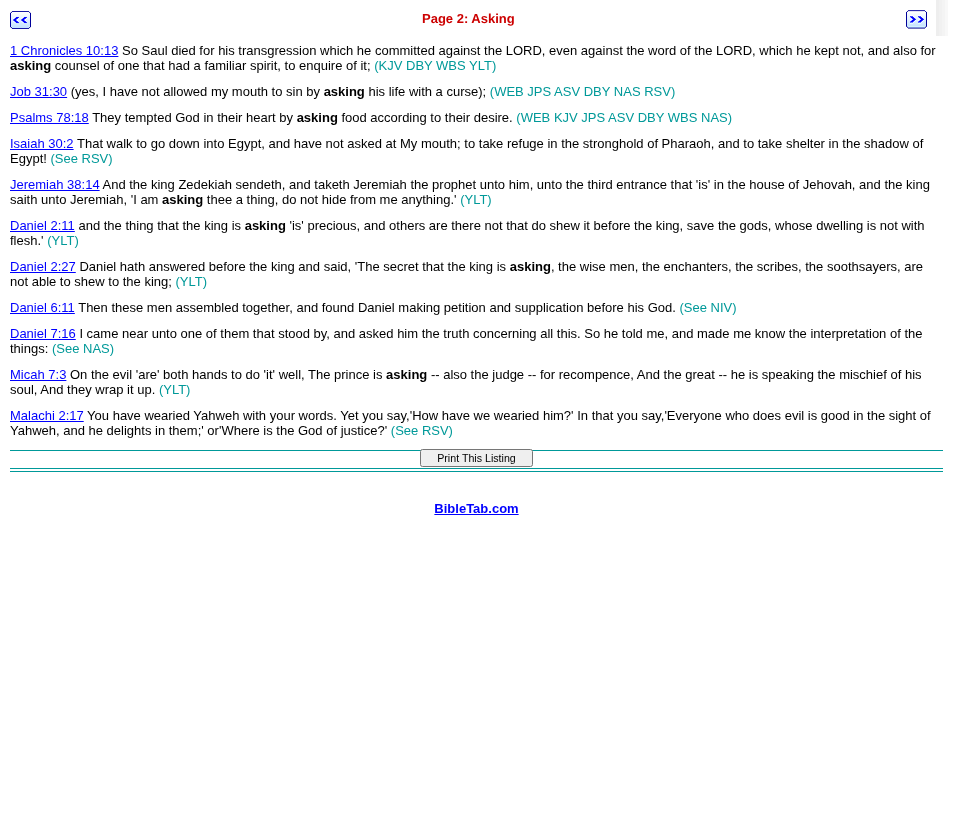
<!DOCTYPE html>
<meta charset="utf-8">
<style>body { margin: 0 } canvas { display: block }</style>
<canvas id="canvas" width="953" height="827"></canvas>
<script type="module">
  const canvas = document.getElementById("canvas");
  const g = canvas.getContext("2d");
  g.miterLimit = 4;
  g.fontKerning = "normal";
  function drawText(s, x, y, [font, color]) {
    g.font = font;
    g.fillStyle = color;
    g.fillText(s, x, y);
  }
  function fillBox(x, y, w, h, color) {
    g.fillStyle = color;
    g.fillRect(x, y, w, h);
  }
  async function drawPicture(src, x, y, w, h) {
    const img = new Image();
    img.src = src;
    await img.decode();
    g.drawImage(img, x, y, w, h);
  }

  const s1 = ["bold 13px Liberation Sans", "#CC0000"];

  fillBox(0, 0, 953, 827, "#FFFFFF");
  await drawPicture("pic1.png", 10, 11, 21, 18);
  drawText("Page 2: Asking", 422, 23, s1);
  await drawPicture("pic2.png", 906, 0, 42, 36);
  await drawPicture("pic3.png", 10, 46, 933, 469);
</script>
